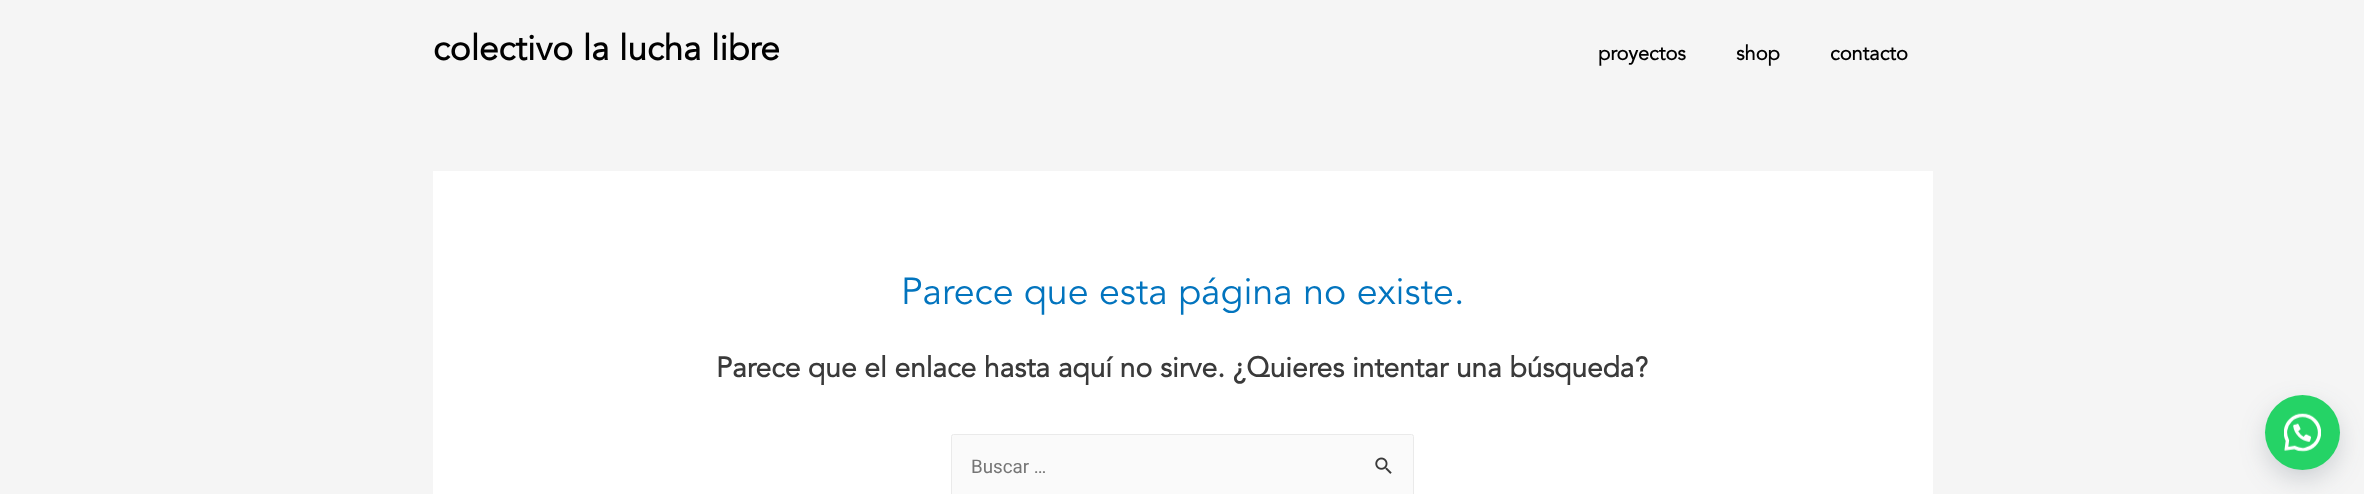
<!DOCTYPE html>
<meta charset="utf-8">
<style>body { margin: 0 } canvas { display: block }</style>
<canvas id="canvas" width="2364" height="494"></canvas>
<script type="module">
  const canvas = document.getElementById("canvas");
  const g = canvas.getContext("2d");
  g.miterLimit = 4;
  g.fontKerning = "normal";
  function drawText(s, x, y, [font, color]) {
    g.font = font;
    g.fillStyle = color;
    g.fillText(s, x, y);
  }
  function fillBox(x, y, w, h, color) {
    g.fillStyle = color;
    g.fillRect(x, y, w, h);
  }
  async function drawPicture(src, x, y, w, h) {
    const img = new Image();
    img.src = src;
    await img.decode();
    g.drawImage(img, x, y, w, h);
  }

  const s1 = ["bold 35px Avenir", "#000000"];
  const s2 = ["bold 20px Avenir", "#000000"];
  const s3 = ["37.5px Avenir", "#0274BE"];
  const s4 = ["bold 28.1px Avenir", "#3A3A3A"];
  const s5 = ["18.75px Roboto", "#757575"];

  fillBox(0, 0, 2364, 494, "#F5F5F5");
  drawText("colectivo la lucha libre", 433, 60, s1);
  drawText("proyectos", 1598, 60, s2);
  drawText("shop", 1736, 60, s2);
  drawText("contacto", 1830, 60, s2);
  fillBox(433, 171, 1500, 323, "#FFFFFF");
  drawText("Parece que esta página no existe.", 901, 304, s3);
  drawText("Parece que el enlace hasta aquí no sirve. ¿Quieres intentar una búsqueda?", 716, 377, s4);
  g.fillStyle = "#FAFAFA";
  g.beginPath();
  g.roundRect(951.5, 434.5, 462, 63, 2);
  g.fill();
  g.strokeStyle = "#EAEAEA";
  g.stroke();
  drawText("Buscar …", 971, 473, s5);
  await drawPicture("pic1.png", 1375, 457, 17, 17);
  g.fillStyle = "rgba(45, 62, 79, 0.3)";
  g.filter = "blur(15.5px)";
  g.beginPath();
  g.roundRect(2271, 411, 63, 63, 31.5);
  g.fill();
  g.filter = "none";
  g.fillStyle = "#25D366";
  g.beginPath();
  g.arc(2302.5, 432.5, 37.5, 0, Math.PI * 2);
  g.fill();
  await drawPicture("pic2.png", 2284, 413, 37, 39);
</script>
